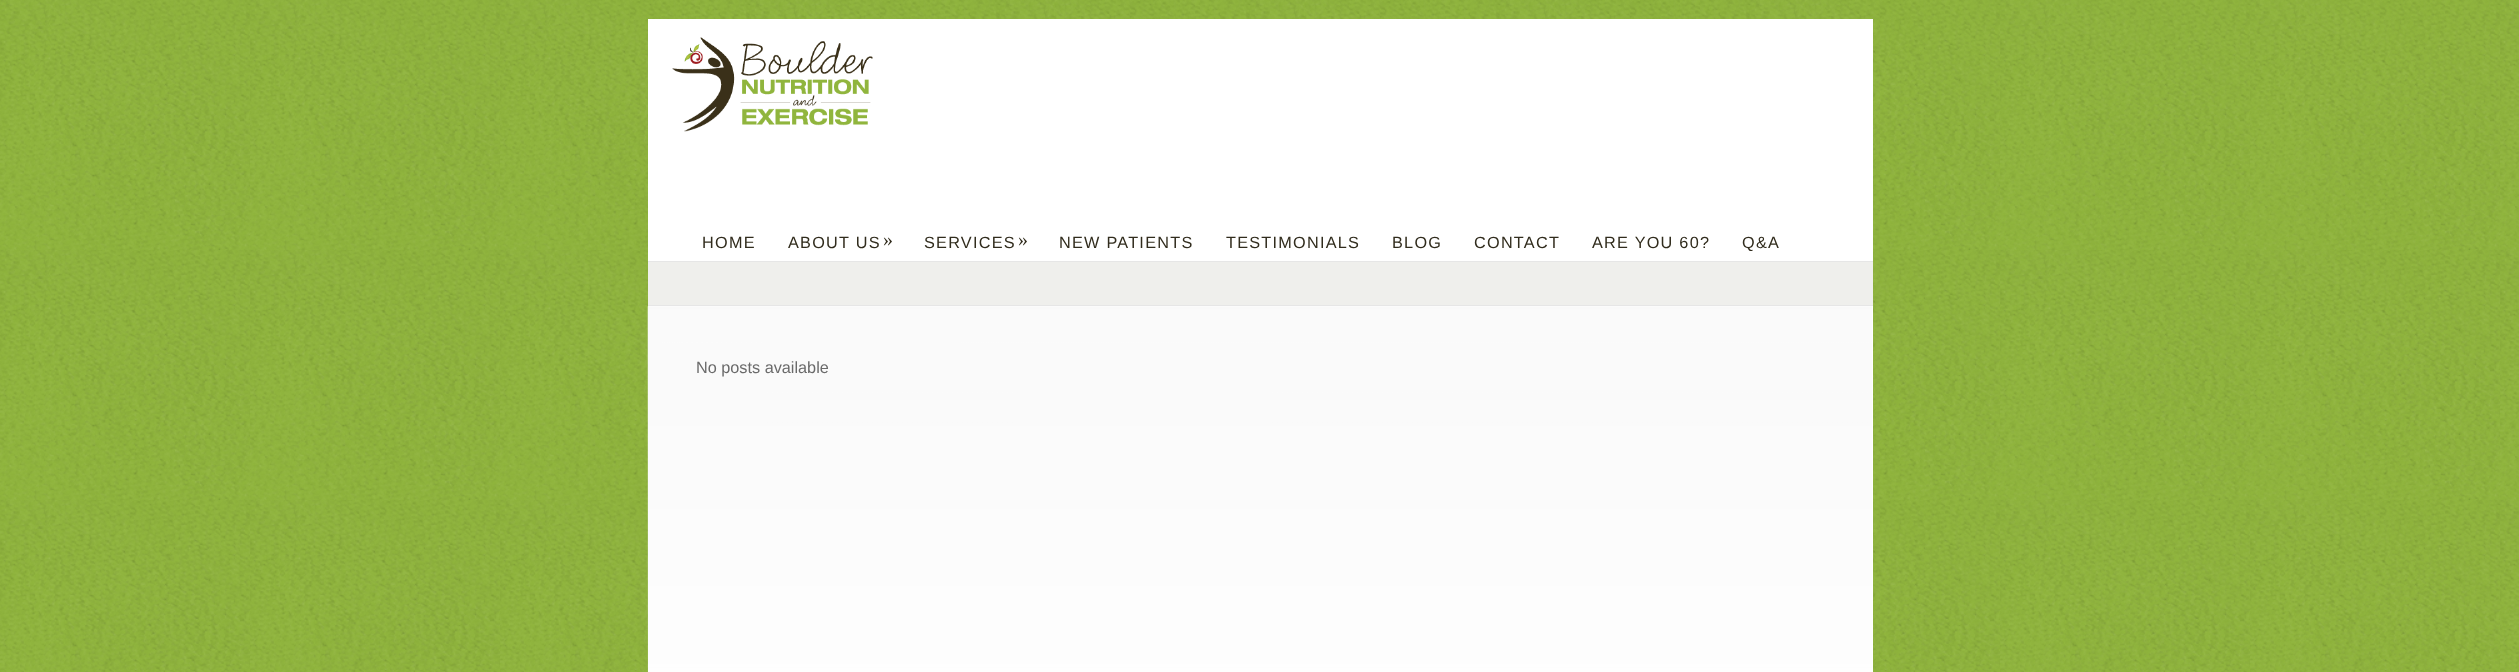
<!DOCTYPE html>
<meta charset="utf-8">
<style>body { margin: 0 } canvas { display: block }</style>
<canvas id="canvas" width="2519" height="672"></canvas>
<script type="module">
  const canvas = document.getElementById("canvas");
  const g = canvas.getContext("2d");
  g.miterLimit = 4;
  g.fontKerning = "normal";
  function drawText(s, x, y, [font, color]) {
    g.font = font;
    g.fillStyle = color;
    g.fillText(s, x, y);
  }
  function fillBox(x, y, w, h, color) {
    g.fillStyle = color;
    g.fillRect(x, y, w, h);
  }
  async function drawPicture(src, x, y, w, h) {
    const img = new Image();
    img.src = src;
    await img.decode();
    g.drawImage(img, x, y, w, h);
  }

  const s1 = ["16.25px Liberation Sans", "#312C1D"];
  const s2 = ["20px Liberation Serif", "#312C1D"];
  const s3 = ["16.25px Liberation Sans", "#6A6A6A"];

  fillBox(0, 0, 2519, 672, "#90B53D");
  await drawPicture("pic1.png", 0, 0, 2519, 672);
  fillBox(648, 19, 1225, 653, "#FFFFFF");
  await drawPicture("pic2.png", 672, 37, 201, 95);
  g.letterSpacing = "1.25px";
  drawText("HOME", 702, 248, s1);
  drawText("ABOUT US", 788, 248, s1);
  drawText("»", 883, 246, s2);
  drawText("SERVICES", 924, 248, s1);
  drawText("»", 1018, 246, s2);
  drawText("NEW PATIENTS", 1059, 248, s1);
  drawText("TESTIMONIALS", 1226, 248, s1);
  drawText("BLOG", 1392, 248, s1);
  drawText("CONTACT", 1474, 248, s1);
  drawText("ARE YOU 60?", 1592, 248, s1);
  drawText("Q&A", 1742, 248, s1);
  fillBox(648, 262, 1225, 43, "#EFEFEC");
  fillBox(648, 261, 1225, 1, "#E6E6E6");
  fillBox(648, 305, 1225, 1, "#E6E6E6");
  await drawPicture("pic3.png", 647, 306, 1225, 366);
  g.letterSpacing = "0px";
  drawText("No posts available", 696, 373, s3);
</script>
